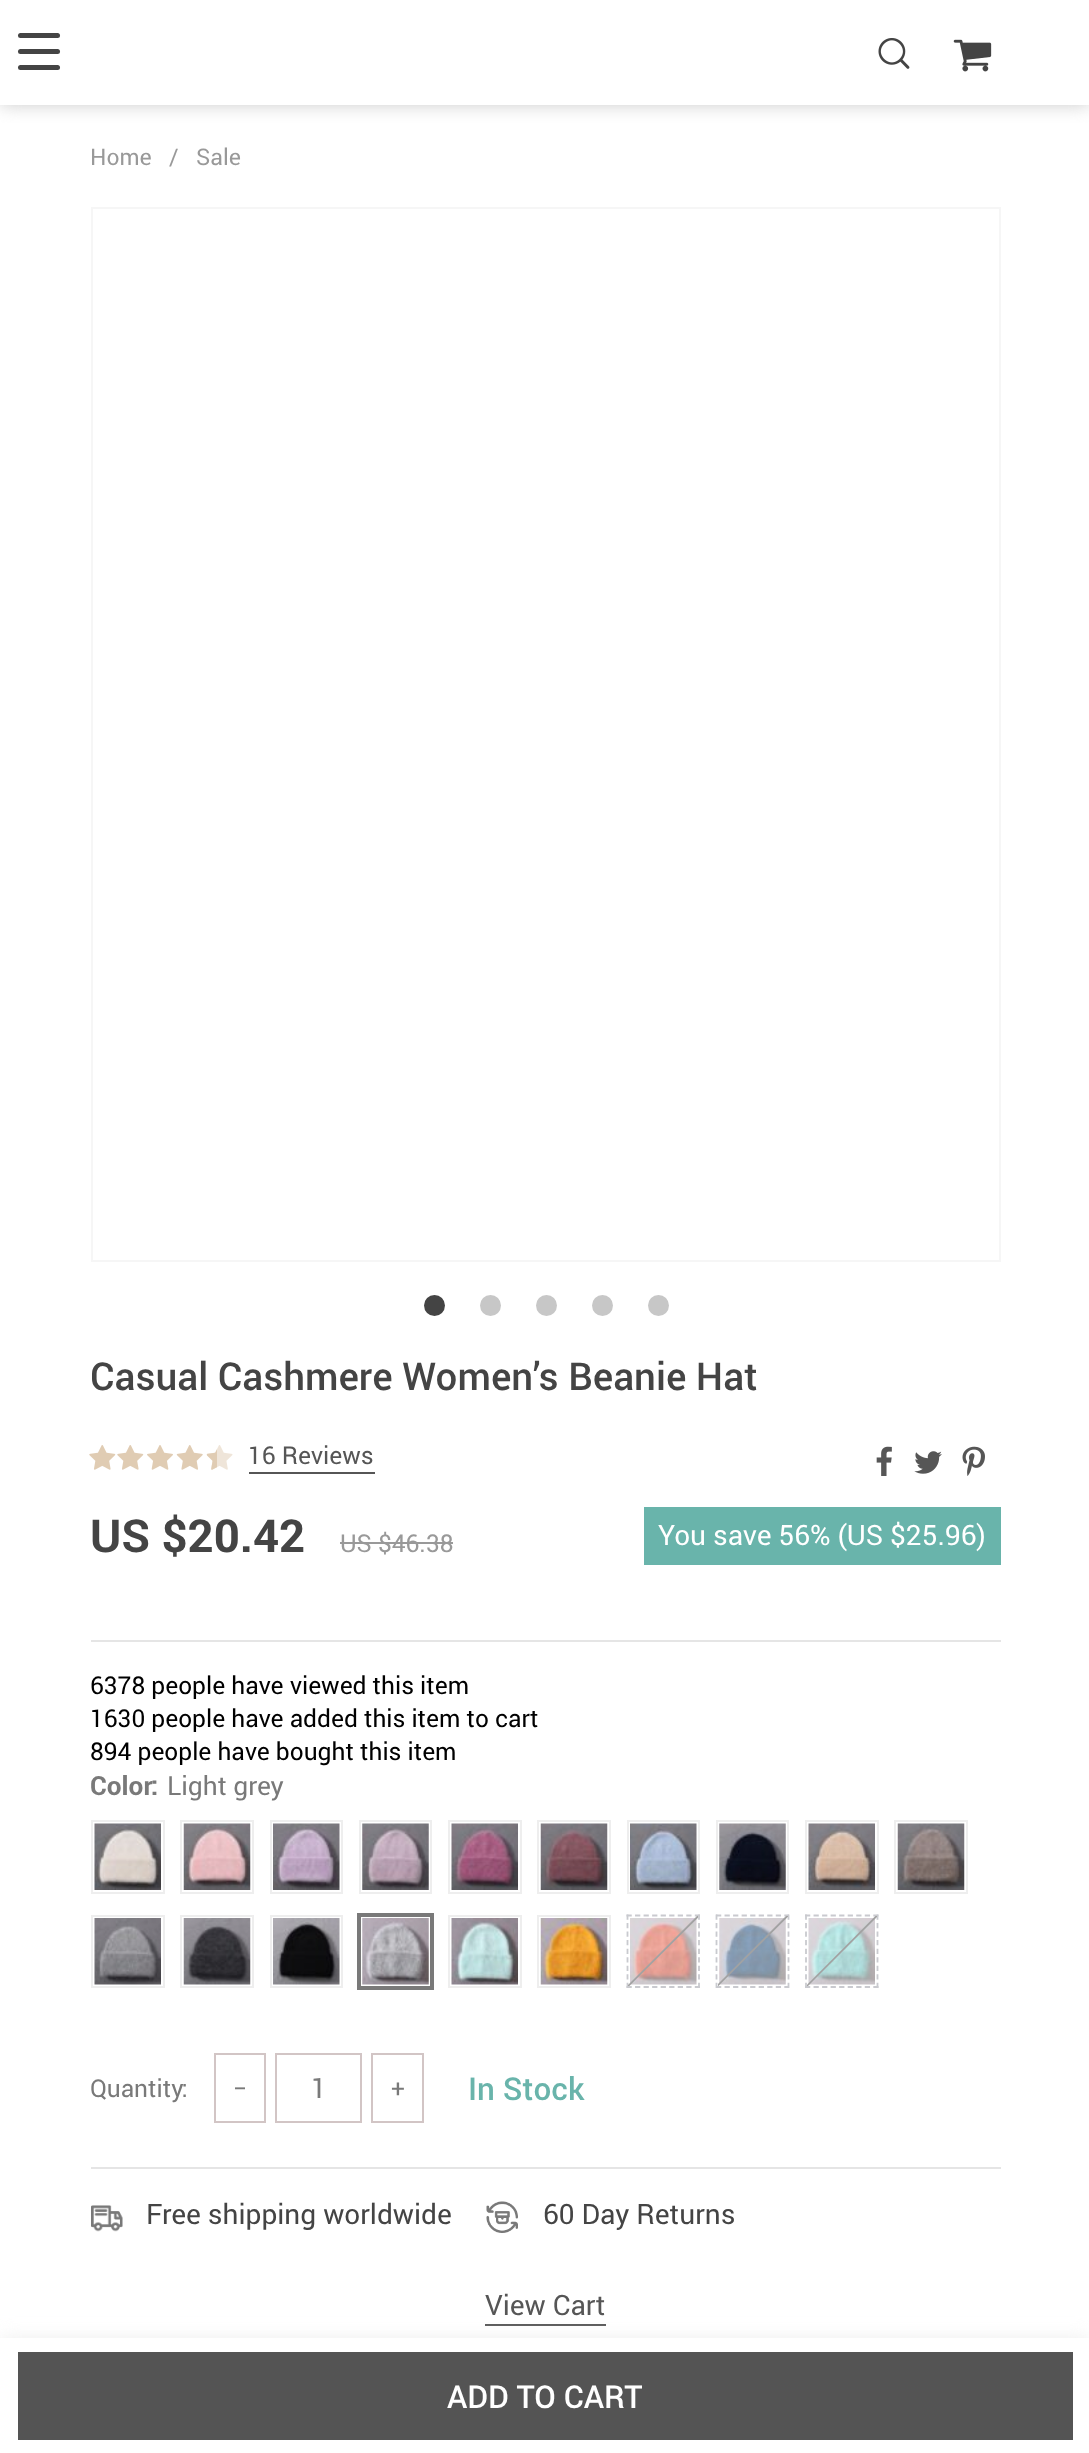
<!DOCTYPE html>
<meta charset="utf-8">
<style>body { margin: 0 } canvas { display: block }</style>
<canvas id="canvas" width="1089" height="2453"></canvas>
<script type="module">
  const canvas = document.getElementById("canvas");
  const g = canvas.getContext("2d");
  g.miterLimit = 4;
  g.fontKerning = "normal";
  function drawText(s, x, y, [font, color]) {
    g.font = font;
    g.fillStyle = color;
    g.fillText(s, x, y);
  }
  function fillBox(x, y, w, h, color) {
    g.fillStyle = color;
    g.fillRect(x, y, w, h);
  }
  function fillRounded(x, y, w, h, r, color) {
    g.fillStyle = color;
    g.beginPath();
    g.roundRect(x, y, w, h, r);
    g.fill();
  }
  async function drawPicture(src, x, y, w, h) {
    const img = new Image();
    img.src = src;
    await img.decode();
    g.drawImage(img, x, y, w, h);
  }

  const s1 = ["23px Roboto", "#999999"];
  const s2 = ["500 38.5px Roboto", "#444444"];
  const s3 = ["24.5px Roboto", "#565656"];
  const s4 = ["bold 45.5px Roboto", "#444444"];
  const s5 = ["24.5px Roboto", "#999999"];
  const s6 = ["28px Roboto", "#FFFFFF"];
  const s7 = ["24.5px Roboto", "#000000"];
  const s8 = ["bold 26.25px Roboto", "#797979"];
  const s9 = ["26.25px Roboto", "#797979"];
  const s10 = ["24.5px Roboto", "#797979"];
  const s11 = ["28px Roboto", "#797979"];
  const s12 = ["500 31.5px Roboto", "#69B4AB"];
  const s13 = ["28px Roboto", "#444444"];
  const s14 = ["28px Roboto", "#565656"];
  const s15 = ["500 31.5px Roboto", "#FFFFFF"];

  fillBox(0, 0, 1089, 2453, "#FFFFFF");
  g.save();
  g.beginPath();
  g.rect(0, 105, 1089, 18);
  g.clip();
  g.fillStyle = "#CCCCCC";
  g.filter = "blur(9px)";
  g.beginPath();
  g.rect(0, 0, 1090, 105);
  g.fill();
  g.filter = "none";
  g.restore();
  fillRounded(18, 33, 42, 5, 2.5, "#444444");
  fillRounded(18, 49, 42, 5, 2.5, "#444444");
  fillRounded(18, 65, 42, 5, 2.5, "#444444");
  await drawPicture("pic1.png", 878, 38, 32, 31);
  await drawPicture("pic2.png", 953, 39, 39, 33);
  drawText("Home", 90, 165, s1);
  drawText("/", 169, 165, s1);
  drawText("Sale", 196, 165, s1);
  g.strokeStyle = "#F6F6F6";
  g.lineWidth = 2;
  g.strokeRect(92, 208, 908, 1053);
  g.fillStyle = "#444444";
  g.beginPath();
  g.arc(434.5, 1305.5, 10.5, 0, Math.PI * 2);
  g.fill();
  g.fillStyle = "#C7C7C7";
  g.beginPath();
  g.arc(490.5, 1305.5, 10.5, 0, Math.PI * 2);
  g.fill();
  g.beginPath();
  g.arc(546.5, 1305.5, 10.5, 0, Math.PI * 2);
  g.fill();
  g.beginPath();
  g.arc(602.5, 1305.5, 10.5, 0, Math.PI * 2);
  g.fill();
  g.beginPath();
  g.arc(658.5, 1305.5, 10.5, 0, Math.PI * 2);
  g.fill();
  drawText("Casual Cashmere Women’s Beanie Hat", 90, 1390, s2);
  await drawPicture("pic3.png", 89, 1445, 27, 25);
  await drawPicture("pic3.png", 117, 1445, 27, 25);
  await drawPicture("pic4.png", 147, 1445, 26, 25);
  await drawPicture("pic5.png", 176, 1445, 27, 25);
  await drawPicture("pic6.png", 206, 1445, 27, 25);
  await drawPicture("pic7.png", 207, 1449, 10, 21);
  drawText("16 Reviews", 248, 1464, s3);
  fillBox(249, 1472, 126, 2, "#565656");
  await drawPicture("pic8.png", 876, 1446, 16, 30);
  await drawPicture("pic9.png", 914, 1451, 28, 23);
  await drawPicture("pic10.png", 962, 1446, 23, 30);
  fillBox(91, 1640, 910, 2, "#E5E5E5");
  drawText("US $20.42", 90, 1552, s4);
  drawText("US $46.38", 340, 1552, s5);
  fillBox(340, 1542, 113, 2, "#999999");
  fillBox(644, 1507, 357, 58, "#69B4AB");
  drawText("You save 56% (US $25.96)", 658, 1545, s6);
  drawText("6378 people have viewed this item", 90, 1694, s7);
  drawText("1630 people have added this item to cart", 90, 1727, s7);
  drawText("894 people have bought this item", 90, 1760, s7);
  drawText("Color:", 90, 1795, s8);
  drawText("Light grey", 167, 1795, s9);
  g.strokeStyle = "#EEEEEE";
  g.strokeRect(92, 1821, 72, 72);
  await drawPicture("pic11.png", 94, 1823, 67, 67);
  g.strokeRect(181, 1821, 72, 72);
  await drawPicture("pic12.png", 183, 1823, 68, 67);
  g.strokeRect(271, 1821, 71, 72);
  await drawPicture("pic13.png", 273, 1823, 67, 67);
  g.strokeRect(360, 1821, 71, 72);
  await drawPicture("pic14.png", 362, 1823, 67, 67);
  g.strokeRect(449, 1821, 72, 72);
  await drawPicture("pic15.png", 451, 1823, 67, 67);
  g.strokeRect(538, 1821, 72, 72);
  await drawPicture("pic16.png", 540, 1823, 68, 67);
  g.strokeRect(628, 1821, 71, 72);
  await drawPicture("pic17.png", 630, 1823, 67, 67);
  g.strokeRect(717, 1821, 71, 72);
  await drawPicture("pic18.png", 719, 1823, 67, 67);
  g.strokeRect(806, 1821, 72, 72);
  await drawPicture("pic19.png", 808, 1823, 67, 67);
  g.strokeRect(895, 1821, 72, 72);
  await drawPicture("pic20.png", 897, 1823, 68, 67);
  g.strokeRect(92, 1916, 72, 71);
  await drawPicture("pic21.png", 94, 1918, 67, 67);
  g.strokeRect(181, 1916, 72, 71);
  await drawPicture("pic22.png", 183, 1918, 68, 67);
  g.strokeRect(271, 1916, 71, 71);
  await drawPicture("pic23.png", 273, 1918, 67, 67);
  g.strokeStyle = "#797979";
  g.lineWidth = 4;
  g.strokeRect(359, 1915, 73, 73);
  await drawPicture("pic24.png", 362, 1918, 67, 67);
  g.strokeStyle = "#EEEEEE";
  g.lineWidth = 2;
  g.strokeRect(449, 1916, 72, 71);
  await drawPicture("pic25.png", 451, 1918, 67, 67);
  g.strokeRect(538, 1916, 72, 71);
  await drawPicture("pic26.png", 540, 1918, 68, 67);
  g.beginPath();
  g.moveTo(626.5, 1915.5);
  g.lineTo(700, 1915.5);
  g.strokeStyle = "#C9CACF";
  g.lineWidth = 1.8;
  g.setLineDash([5.25, 3.29]);
  g.stroke();
  g.beginPath();
  g.moveTo(699, 1914.5);
  g.lineTo(699, 1988);
  g.stroke();
  g.beginPath();
  g.moveTo(626.5, 1987);
  g.lineTo(700, 1987);
  g.stroke();
  g.beginPath();
  g.moveTo(627.5, 1914.5);
  g.lineTo(627.5, 1988);
  g.stroke();
  await drawPicture("pic27.png", 630, 1918, 67, 67);
  g.save();
  g.beginPath();
  g.rect(628, 1916, 70, 70);
  g.clip();
  g.fillStyle = "#A2A2A2";
  g.beginPath();
  g.moveTo(538, 2075);
  g.lineTo(786, 1827);
  g.lineTo(787, 1829);
  g.lineTo(539, 2076);
  g.closePath();
  g.fill();
  g.restore();
  g.beginPath();
  g.moveTo(716, 1915.5);
  g.lineTo(789, 1915.5);
  g.stroke();
  g.beginPath();
  g.moveTo(788.5, 1914.5);
  g.lineTo(788.5, 1988);
  g.stroke();
  g.beginPath();
  g.moveTo(716, 1987);
  g.lineTo(789, 1987);
  g.stroke();
  g.beginPath();
  g.moveTo(716.5, 1914.5);
  g.lineTo(716.5, 1988);
  g.stroke();
  await drawPicture("pic28.png", 719, 1918, 67, 67);
  g.save();
  g.beginPath();
  g.rect(718, 1916, 70, 70);
  g.clip();
  g.fillStyle = "#A2A2A2";
  g.beginPath();
  g.moveTo(627, 2075);
  g.lineTo(875, 1827);
  g.lineTo(876, 1829);
  g.lineTo(628, 2076);
  g.closePath();
  g.fill();
  g.restore();
  g.beginPath();
  g.moveTo(805, 1915.5);
  g.lineTo(878.5, 1915.5);
  g.stroke();
  g.beginPath();
  g.moveTo(877.5, 1914.5);
  g.lineTo(877.5, 1988);
  g.stroke();
  g.beginPath();
  g.moveTo(805, 1987);
  g.lineTo(878.5, 1987);
  g.stroke();
  g.beginPath();
  g.moveTo(806, 1914.5);
  g.lineTo(806, 1988);
  g.stroke();
  await drawPicture("pic29.png", 808, 1918, 67, 67);
  g.save();
  g.beginPath();
  g.rect(807, 1916, 70, 70);
  g.clip();
  g.fillStyle = "#A2A2A2";
  g.beginPath();
  g.moveTo(717, 2075);
  g.lineTo(964, 1827);
  g.lineTo(965, 1829);
  g.lineTo(718, 2076);
  g.closePath();
  g.fill();
  g.restore();
  fillBox(91, 2167, 910, 2, "#E5E5E5");
  drawText("Quantity:", 90, 2097, s10);
  g.strokeStyle = "#D2C5C5";
  g.lineWidth = 2;
  g.setLineDash([]);
  g.strokeRect(215, 2054, 50, 68);
  drawText("−", 233, 2097, s10);
  g.strokeRect(276, 2054, 85, 68);
  drawText("1", 311, 2098, s11);
  g.strokeRect(372, 2054, 51, 68);
  drawText("+", 391, 2097, s10);
  drawText("In Stock", 468, 2100, s12);
  await drawPicture("pic30.png", 91, 2205, 32, 27);
  drawText("Free shipping worldwide", 146, 2224, s13);
  await drawPicture("pic31.png", 486, 2201, 32, 32);
  drawText("60 Day Returns", 543, 2224, s13);
  drawText("View Cart", 485, 2315, s14);
  fillBox(485, 2324, 121, 2, "#565656");
  g.fillStyle = "#EEEEEE";
  g.filter = "blur(9px)";
  g.beginPath();
  g.rect(0, 2338, 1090, 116);
  g.fill();
  g.filter = "none";
  fillBox(0, 2338, 1089, 115, "#FFFFFF");
  fillBox(18, 2352, 1055, 88, "#545454");
  drawText("ADD TO CART", 447, 2408, s15);
</script>
